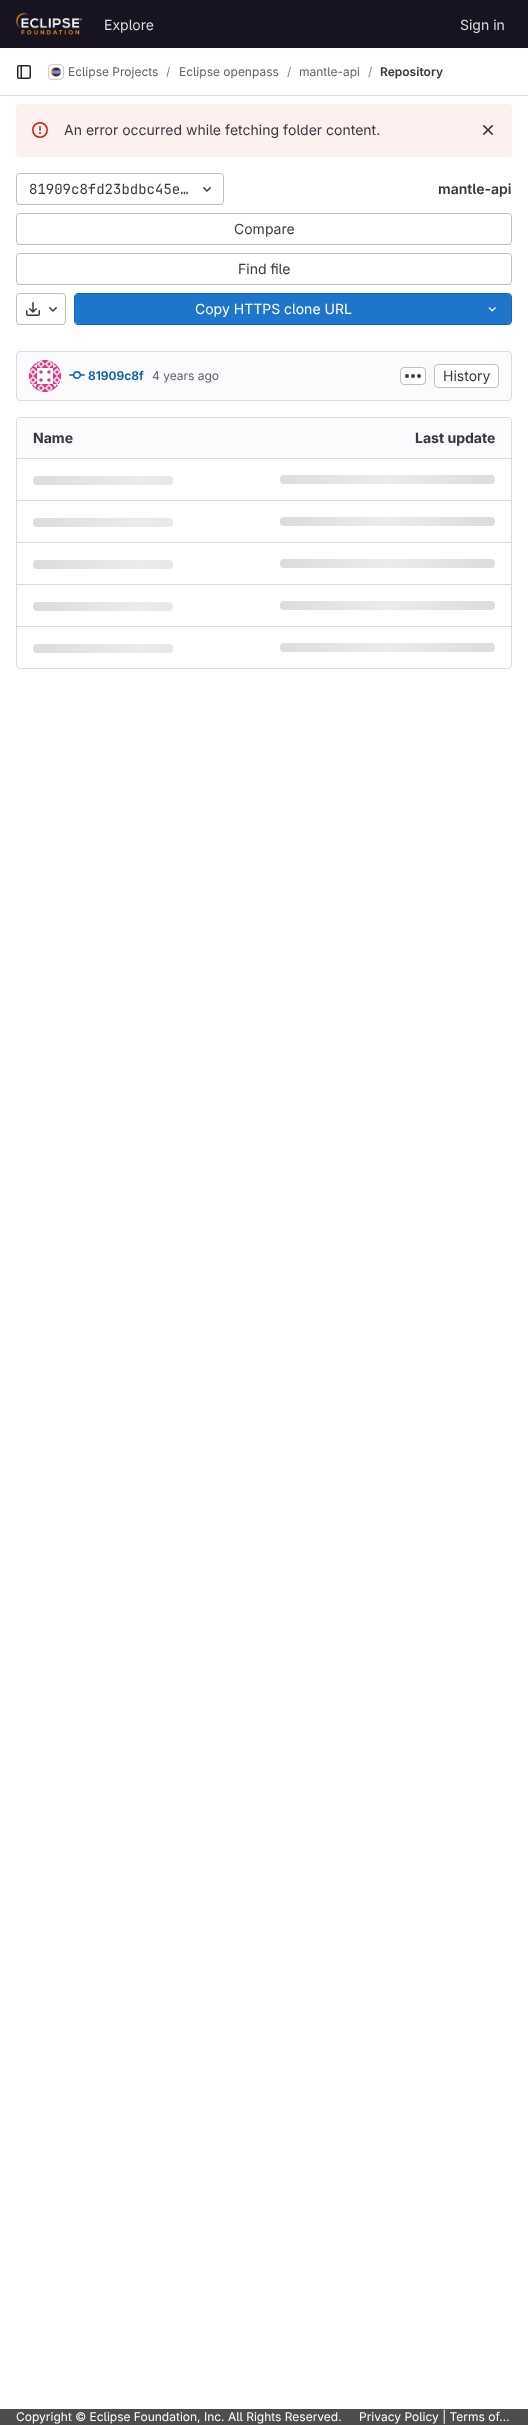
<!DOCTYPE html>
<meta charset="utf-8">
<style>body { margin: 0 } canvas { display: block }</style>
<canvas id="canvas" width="528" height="2425"></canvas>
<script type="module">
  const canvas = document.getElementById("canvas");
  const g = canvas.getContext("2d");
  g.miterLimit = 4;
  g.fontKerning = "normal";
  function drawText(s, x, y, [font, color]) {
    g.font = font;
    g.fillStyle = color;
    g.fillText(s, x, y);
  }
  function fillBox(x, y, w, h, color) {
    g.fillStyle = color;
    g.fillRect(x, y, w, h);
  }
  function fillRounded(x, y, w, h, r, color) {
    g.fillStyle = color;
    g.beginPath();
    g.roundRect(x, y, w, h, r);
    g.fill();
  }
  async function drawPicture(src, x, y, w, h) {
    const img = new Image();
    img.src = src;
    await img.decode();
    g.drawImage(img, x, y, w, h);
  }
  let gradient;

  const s1 = ["14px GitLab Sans", "#DCDCDE"];
  const s2 = ["12px GitLab Sans", "#626168"];
  const s3 = ["12px GitLab Sans", "#89888D"];
  const s4 = ["600 12px GitLab Sans", "#3A383F"];
  const s5 = ["14px GitLab Sans", "#3A383F"];
  const s6 = ["14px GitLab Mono", "#3A383F"];
  const s7 = ["600 14px GitLab Sans", "#3A383F"];
  const s8 = ["14px GitLab Sans", "#FFFFFF"];
  const s9 = ["600 12px GitLab Sans", "#0B5CAD"];
  const s10 = ["bold 14px GitLab Sans", "#3A383F"];
  const s11 = ["12px GitLab Sans", "#FFFFFF"];

  fillBox(0, 0, 528, 2425, "#FFFFFF");
  fillBox(0, 0, 528, 48, "#171321");
  await drawPicture("pic1.png", 15, 12, 68, 23);
  drawText("Explore", 104, 30, s1);
  drawText("Sign in", 460, 30, s1);
  fillBox(0, 95, 528, 1, "#DCDCDE");
  await drawPicture("pic2.png", 17, 65, 14, 14);
  g.beginPath();
  g.roundRect(48.5, 64.5, 15, 15, 3.5);
  g.strokeStyle = "#DCDCDE";
  g.stroke();
  await drawPicture("pic3.png", 50, 67, 12, 10);
  g.beginPath();
  g.roundRect(48.5, 64.5, 15, 15, 3.5);
  g.strokeStyle = "rgba(5, 5, 6, 0.08)";
  g.stroke();
  drawText("Eclipse Projects", 68, 76, s2);
  drawText("/", 166, 76, s3);
  drawText("Eclipse openpass", 179, 76, s2);
  drawText("/", 287, 76, s3);
  drawText("mantle-api", 299, 76, s2);
  drawText("/", 368, 76, s3);
  drawText("Repository", 380, 76, s4);
  fillRounded(16, 104, 496, 53, 4, "#FCF1EF");
  await drawPicture("pic4.png", 32, 122, 16, 16);
  drawText("An error occurred while fetching folder content.", 64, 135, s5);
  await drawPicture("pic5.png", 483, 125, 10, 10);
  g.beginPath();
  g.roundRect(16.5, 173.5, 207, 31, 3.5);
  g.strokeStyle = "#BFBFC3";
  g.stroke();
  drawText("81909c8fd23bdbc45e…", 29, 194, s6);
  await drawPicture("pic6.png", 203, 187, 8, 5);
  drawText("mantle-api", 438, 194, s7);
  g.beginPath();
  g.roundRect(16.5, 213.5, 495, 31, 3.5);
  g.stroke();
  drawText("Compare", 234, 234, s5);
  g.beginPath();
  g.roundRect(16.5, 253.5, 495, 31, 3.5);
  g.stroke();
  drawText("Find file", 238, 274, s5);
  g.beginPath();
  g.roundRect(16.5, 293.5, 49, 31, 3.5);
  g.stroke();
  await drawPicture("pic7.png", 26, 302, 14, 14);
  await drawPicture("pic6.png", 49, 307, 8, 5);
  g.fillStyle = "#1F75CB";
  g.beginPath();
  g.roundRect(75, 294, 398, 30, [3, 0, 0, 3]);
  g.fill();
  g.fillStyle = "#1068BF";
  g.beginPath();
  g.moveTo(78, 293);
  g.lineTo(473, 293);
  g.lineTo(473, 325);
  g.lineTo(78, 325);
  g.bezierCurveTo(76, 325, 74, 323, 74, 321);
  g.lineTo(74, 297);
  g.bezierCurveTo(74, 295, 76, 293, 78, 293);
  g.closePath();
  g.moveTo(78, 294);
  g.lineTo(473, 294);
  g.lineTo(473, 324);
  g.lineTo(78, 324);
  g.bezierCurveTo(76, 324, 75, 323, 75, 321);
  g.lineTo(75, 297);
  g.bezierCurveTo(75, 295, 76, 294, 78, 294);
  g.closePath();
  g.fill("evenodd");
  drawText("Copy HTTPS clone URL", 195, 314, s8);
  g.fillStyle = "#1F75CB";
  g.beginPath();
  g.roundRect(473, 294, 38, 30, [0, 3, 3, 0]);
  g.fill();
  g.fillStyle = "#1068BF";
  g.beginPath();
  g.moveTo(473, 293);
  g.lineTo(508, 293);
  g.bezierCurveTo(510, 293, 512, 295, 512, 297);
  g.lineTo(512, 321);
  g.bezierCurveTo(512, 323, 510, 325, 508, 325);
  g.lineTo(473, 325);
  g.closePath();
  g.moveTo(473, 294);
  g.lineTo(508, 294);
  g.bezierCurveTo(509.5, 294, 511, 295.5, 511, 297);
  g.lineTo(511, 321);
  g.bezierCurveTo(511, 322.5, 509.5, 324, 508, 324);
  g.lineTo(473, 324);
  g.closePath();
  g.fill("evenodd");
  await drawPicture("pic8.png", 488, 307, 8, 5);
  g.fillStyle = "#FBFAFD";
  g.beginPath();
  g.roundRect(16.5, 351.5, 495, 49, 3.5);
  g.fill();
  g.strokeStyle = "#DCDCDE";
  g.stroke();
  await drawPicture("pic9.png", 29, 360, 32, 32);
  g.beginPath();
  g.arc(45, 376, 15.5, 0, Math.PI * 2);
  g.strokeStyle = "rgba(5, 5, 6, 0.08)";
  g.stroke();
  await drawPicture("pic10.png", 69, 371, 16, 8);
  drawText("81909c8f", 88, 380, s9);
  drawText("4 years ago", 152, 380, s2);
  g.fillStyle = "#FFFFFF";
  g.beginPath();
  g.roundRect(400.5, 367.5, 25, 17, 3.5);
  g.fill();
  g.strokeStyle = "#BFBFC3";
  g.stroke();
  await drawPicture("pic11.png", 405, 374, 16, 4);
  g.beginPath();
  g.roundRect(434.5, 364.5, 64, 23, 3.5);
  g.fill();
  g.stroke();
  drawText("History", 443, 381, s5);
  g.beginPath();
  g.roundRect(16.5, 417.5, 495, 251, 3.5);
  g.strokeStyle = "#DCDCDE";
  g.stroke();
  g.fillStyle = "#FBFAFD";
  g.beginPath();
  g.roundRect(17, 418, 247, 41, [3, 0, 0, 0]);
  g.fill();
  drawText("Name", 33, 443, s10);
  g.fillStyle = "#FBFAFD";
  g.beginPath();
  g.roundRect(264, 418, 247, 41, [0, 3, 0, 0]);
  g.fill();
  drawText("Last update", 415, 443, s10);
  fillBox(17, 500, 494, 1, "#DCDCDE");
  fillBox(17, 458, 494, 1, "#DCDCDE");
  gradient = g.createLinearGradient(280, 475, 495, 475);
  gradient.addColorStop(0, "#DCDCDE");
  gradient.addColorStop(0.5, "#ECECEF");
  gradient.addColorStop(1, "#DCDCDE");
  g.fillStyle = gradient;
  g.beginPath();
  g.roundRect(280, 475, 215, 9, 4);
  g.fill();
  gradient = g.createLinearGradient(33, 476, 248, 476);
  gradient.addColorStop(0, "#DCDCDE");
  gradient.addColorStop(0.5, "#ECECEF");
  gradient.addColorStop(1, "#DCDCDE");
  g.fillStyle = gradient;
  g.beginPath();
  g.roundRect(33, 476, 140, 9, 4);
  g.fill();
  fillBox(17, 542, 494, 1, "#DCDCDE");
  gradient = g.createLinearGradient(33, 518, 248, 518);
  gradient.addColorStop(0, "#DCDCDE");
  gradient.addColorStop(0.5, "#ECECEF");
  gradient.addColorStop(1, "#DCDCDE");
  g.fillStyle = gradient;
  g.beginPath();
  g.roundRect(33, 518, 140, 9, 4);
  g.fill();
  gradient = g.createLinearGradient(280, 517, 495, 517);
  gradient.addColorStop(0, "#DCDCDE");
  gradient.addColorStop(0.5, "#ECECEF");
  gradient.addColorStop(1, "#DCDCDE");
  g.fillStyle = gradient;
  g.beginPath();
  g.roundRect(280, 517, 215, 9, 4);
  g.fill();
  fillBox(17, 584, 494, 1, "#DCDCDE");
  gradient = g.createLinearGradient(33, 560, 248, 560);
  gradient.addColorStop(0, "#DCDCDE");
  gradient.addColorStop(0.5, "#ECECEF");
  gradient.addColorStop(1, "#DCDCDE");
  g.fillStyle = gradient;
  g.beginPath();
  g.roundRect(33, 560, 140, 9, 4);
  g.fill();
  gradient = g.createLinearGradient(280, 559, 495, 559);
  gradient.addColorStop(0, "#DCDCDE");
  gradient.addColorStop(0.5, "#ECECEF");
  gradient.addColorStop(1, "#DCDCDE");
  g.fillStyle = gradient;
  g.beginPath();
  g.roundRect(280, 559, 215, 9, 4);
  g.fill();
  fillBox(17, 626, 494, 1, "#DCDCDE");
  gradient = g.createLinearGradient(33, 602, 248, 602);
  gradient.addColorStop(0, "#DCDCDE");
  gradient.addColorStop(0.5, "#ECECEF");
  gradient.addColorStop(1, "#DCDCDE");
  g.fillStyle = gradient;
  g.beginPath();
  g.roundRect(33, 602, 140, 9, 4);
  g.fill();
  gradient = g.createLinearGradient(280, 601, 495, 601);
  gradient.addColorStop(0, "#DCDCDE");
  gradient.addColorStop(0.5, "#ECECEF");
  gradient.addColorStop(1, "#DCDCDE");
  g.fillStyle = gradient;
  g.beginPath();
  g.roundRect(280, 601, 215, 9, 4);
  g.fill();
  gradient = g.createLinearGradient(33, 644, 248, 644);
  gradient.addColorStop(0, "#DCDCDE");
  gradient.addColorStop(0.5, "#ECECEF");
  gradient.addColorStop(1, "#DCDCDE");
  g.fillStyle = gradient;
  g.beginPath();
  g.roundRect(33, 644, 140, 9, 4);
  g.fill();
  gradient = g.createLinearGradient(280, 643, 495, 643);
  gradient.addColorStop(0, "#DCDCDE");
  gradient.addColorStop(0.5, "#ECECEF");
  gradient.addColorStop(1, "#DCDCDE");
  g.fillStyle = gradient;
  g.beginPath();
  g.roundRect(280, 643, 215, 9, 4);
  g.fill();
  fillBox(0, 2409, 528, 16, "#4C4D4E");
  drawText("Copyright © Eclipse Foundation, Inc. All Rights Reserved.", 16, 2421, s11);
  drawText("Privacy Policy | Terms of…", 359, 2421, s11);
</script>
